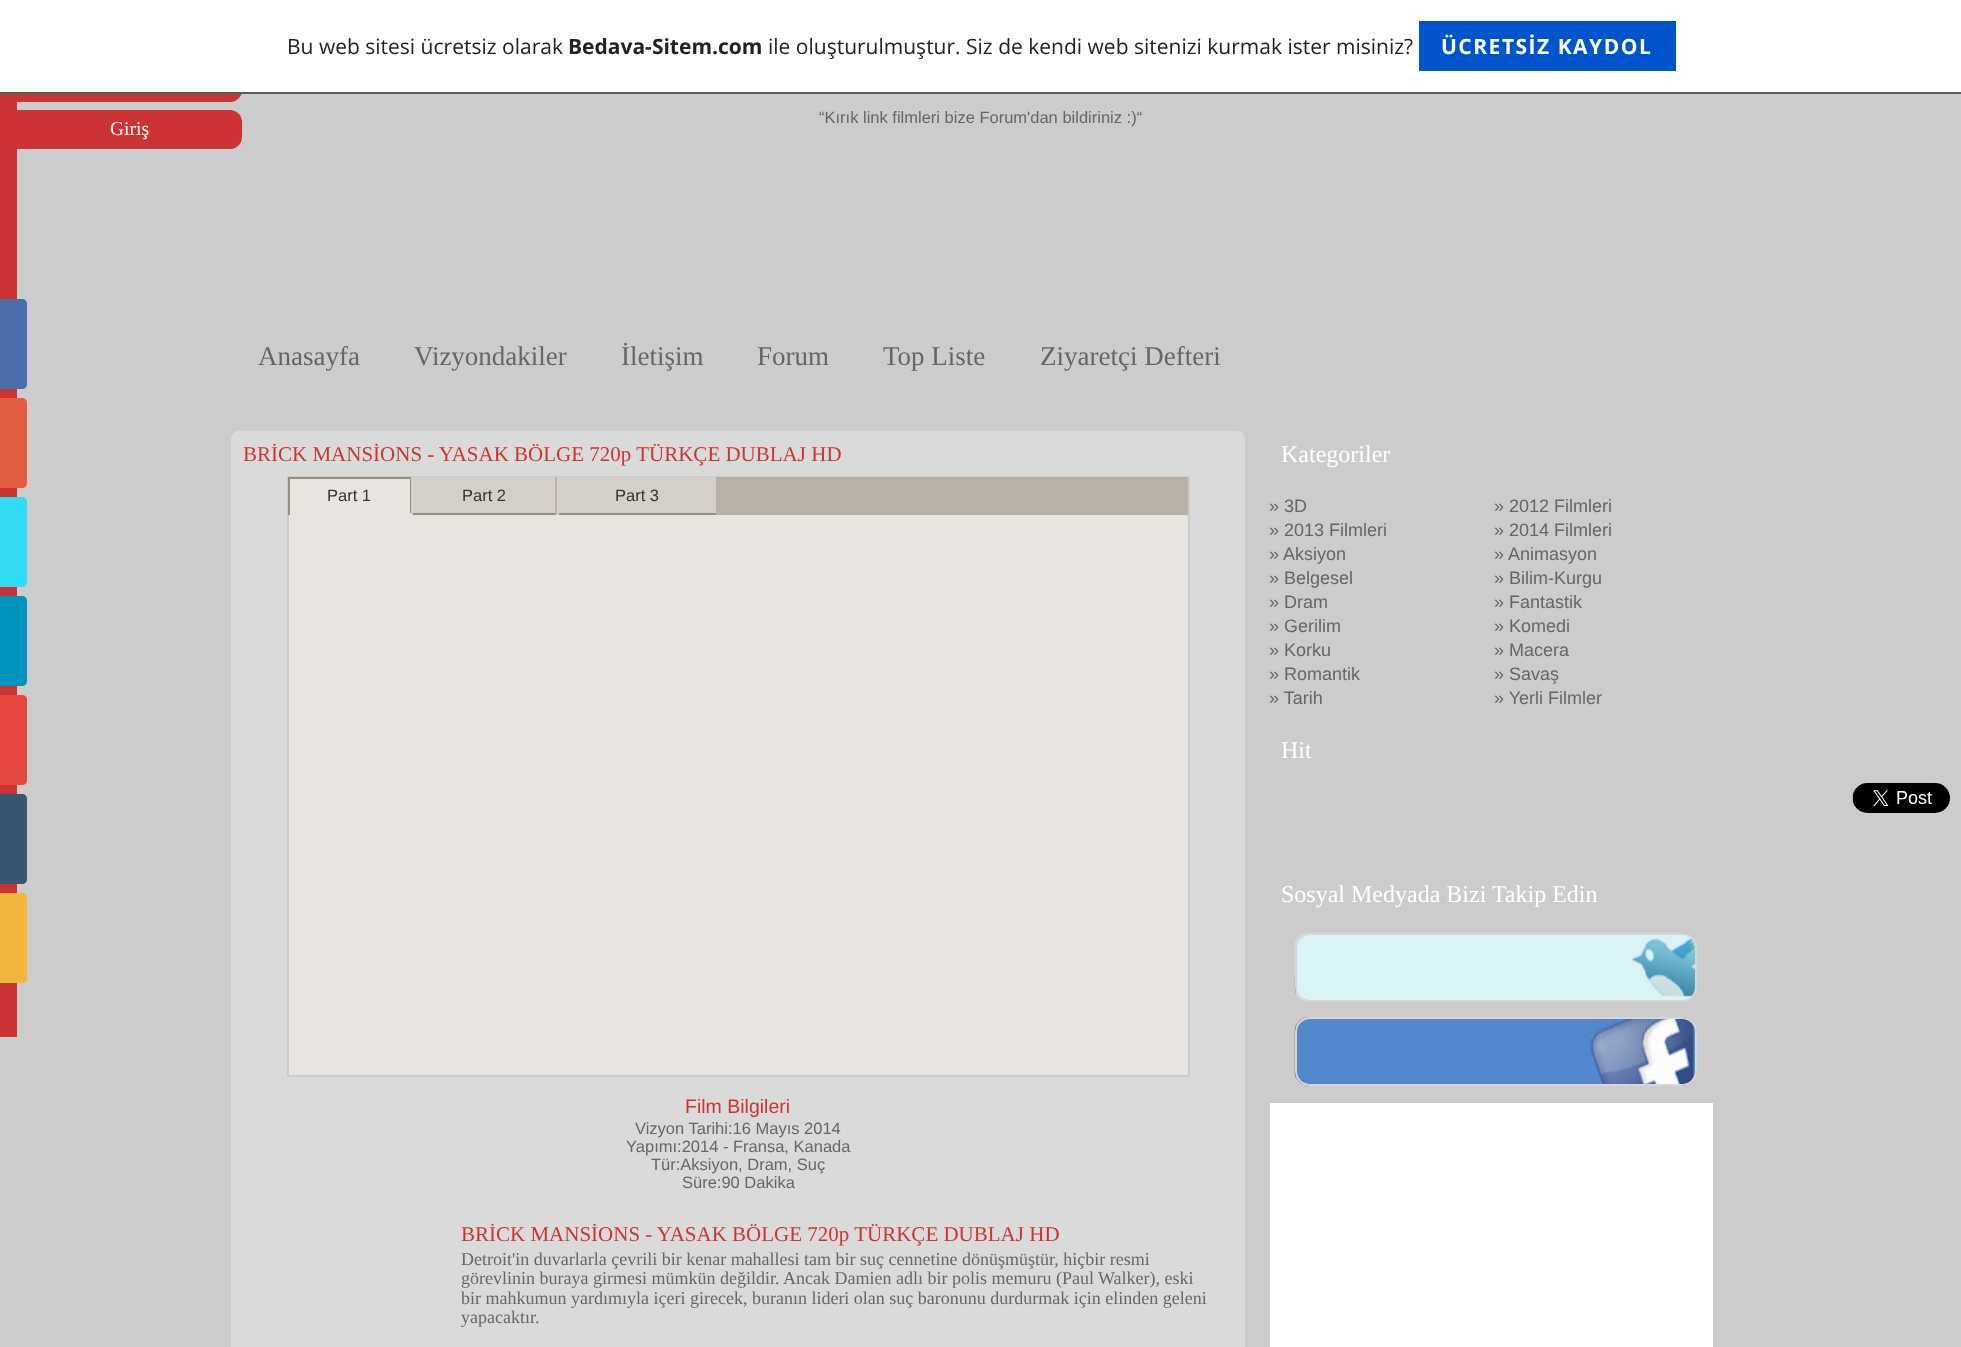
<!DOCTYPE html>
<meta charset="utf-8">
<style>body { margin: 0 } canvas { display: block }</style>
<canvas id="canvas" width="1961" height="1347"></canvas>
<script type="module">
  const canvas = document.getElementById("canvas");
  const g = canvas.getContext("2d");
  g.miterLimit = 4;
  g.fontKerning = "normal";
  function drawText(s, x, y, [font, color]) {
    g.font = font;
    g.fillStyle = color;
    g.fillText(s, x, y);
  }
  function fillBox(x, y, w, h, color) {
    g.fillStyle = color;
    g.fillRect(x, y, w, h);
  }
  function fillRounded(x, y, w, h, r, color) {
    g.fillStyle = color;
    g.beginPath();
    g.roundRect(x, y, w, h, r);
    g.fill();
  }
  async function drawPicture(src, x, y, w, h) {
    const img = new Image();
    img.src = src;
    await img.decode();
    g.drawImage(img, x, y, w, h);
  }

  const s1 = ["21px Open Sans", "#232323"];
  const s2 = ["bold 21px Open Sans", "#232323"];
  const s3 = ["bold 21px Open Sans", "#FFFFFF"];
  const s4 = ["19.5px Liberation Serif", "#FFFFFF"];
  const s5 = ["16.5px Liberation Sans", "#666666"];
  const s6 = ["27px Liberation Serif", "#666666"];
  const s7 = ["21px Liberation Serif", "#CC3333"];
  const s8 = ["16.5px Liberation Sans", "#333333"];
  const s9 = ["19.5px Liberation Sans", "#CC3333"];
  const s10 = ["18px Liberation Serif", "#666666"];
  const s11 = ["24px Liberation Serif", "#FFFFFF"];
  const s12 = ["18px Liberation Sans", "#666666"];

  fillBox(0, 0, 1961, 1347, "#CCCCCC");
  g.fillStyle = "#CC3333";
  g.beginPath();
  g.roundRect(17, 63, 225, 39, [0, 12, 12, 0]);
  g.fill();
  fillBox(0, 0, 1961, 92, "#FFFFFF");
  fillBox(0, 92, 1961, 2, "#5A5A5A");
  drawText("Bu web sitesi ücretsiz olarak", 287, 54, s1);
  drawText("Bedava-Sitem.com", 568, 54, s2);
  drawText("ile oluşturulmuştur. Siz de kendi web sitenizi kurmak ister misiniz?", 768, 54, s1);
  fillBox(1419, 21, 257, 50, "#0055CC");
  g.letterSpacing = "1.5px";
  drawText("ÜCRETSİZ KAYDOL", 1441, 54, s3);
  fillBox(0, 94, 17, 943, "#CC3333");
  g.beginPath();
  g.roundRect(17, 110, 225, 39, [0, 12, 12, 0]);
  g.fill();
  g.letterSpacing = "0px";
  drawText("Giriş", 110, 135, s4);
  drawText("“Kırık link filmleri bize Forum'dan bildiriniz :)“", 819, 123, s5);
  drawText("Anasayfa", 258, 365, s6);
  drawText("Vizyondakiler", 414, 365, s6);
  drawText("İletişim", 621, 365, s6);
  drawText("Forum", 757, 365, s6);
  drawText("Top Liste", 883, 365, s6);
  drawText("Ziyaretçi Defteri", 1040, 365, s6);
  g.fillStyle = "#4A6EA9";
  g.beginPath();
  g.moveTo(0, 299);
  g.lineTo(22, 299);
  g.bezierCurveTo(25, 299, 27, 301, 27, 304);
  g.lineTo(27, 384);
  g.bezierCurveTo(27, 387, 25, 389, 22, 389);
  g.lineTo(-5, 389);
  g.lineTo(-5, 304);
  g.bezierCurveTo(-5, 301, -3, 299, 0, 299);
  g.closePath();
  g.fill();
  g.fillStyle = "#E25E43";
  g.beginPath();
  g.moveTo(0, 398);
  g.lineTo(22, 398);
  g.bezierCurveTo(25, 398, 27, 400, 27, 403);
  g.lineTo(27, 483);
  g.bezierCurveTo(27, 486, 25, 488, 22, 488);
  g.lineTo(-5, 488);
  g.lineTo(-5, 403);
  g.bezierCurveTo(-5, 400, -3, 398, 0, 398);
  g.closePath();
  g.fill();
  g.fillStyle = "#30DCF3";
  g.beginPath();
  g.moveTo(0, 497);
  g.lineTo(22, 497);
  g.bezierCurveTo(25, 497, 27, 499, 27, 502);
  g.lineTo(27, 582);
  g.bezierCurveTo(27, 585, 25, 587, 22, 587);
  g.lineTo(-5, 587);
  g.lineTo(-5, 502);
  g.bezierCurveTo(-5, 499, -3, 497, 0, 497);
  g.closePath();
  g.fill();
  g.fillStyle = "#0095BC";
  g.beginPath();
  g.moveTo(0, 596);
  g.lineTo(22, 596);
  g.bezierCurveTo(25, 596, 27, 598, 27, 601);
  g.lineTo(27, 681);
  g.bezierCurveTo(27, 684, 25, 686, 22, 686);
  g.lineTo(-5, 686);
  g.lineTo(-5, 601);
  g.bezierCurveTo(-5, 598, -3, 596, 0, 596);
  g.closePath();
  g.fill();
  g.fillStyle = "#E44840";
  g.beginPath();
  g.moveTo(0, 695);
  g.lineTo(22, 695);
  g.bezierCurveTo(25, 695, 27, 697, 27, 700);
  g.lineTo(27, 780);
  g.bezierCurveTo(27, 783, 25, 785, 22, 785);
  g.lineTo(-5, 785);
  g.lineTo(-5, 700);
  g.bezierCurveTo(-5, 697, -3, 695, 0, 695);
  g.closePath();
  g.fill();
  g.fillStyle = "#375775";
  g.beginPath();
  g.moveTo(0, 794);
  g.lineTo(22, 794);
  g.bezierCurveTo(25, 794, 27, 796, 27, 799);
  g.lineTo(27, 879);
  g.bezierCurveTo(27, 882, 25, 884, 22, 884);
  g.lineTo(-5, 884);
  g.lineTo(-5, 799);
  g.bezierCurveTo(-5, 796, -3, 794, 0, 794);
  g.closePath();
  g.fill();
  g.fillStyle = "#F2B63E";
  g.beginPath();
  g.moveTo(0, 893);
  g.lineTo(22, 893);
  g.bezierCurveTo(25, 893, 27, 895, 27, 898);
  g.lineTo(27, 978);
  g.bezierCurveTo(27, 981, 25, 983, 22, 983);
  g.lineTo(-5, 983);
  g.lineTo(-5, 898);
  g.bezierCurveTo(-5, 895, -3, 893, 0, 893);
  g.closePath();
  g.fill();
  await drawPicture("pic1.png", 1852, 783, 98, 30);
  fillRounded(231, 431, 1014, 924, 8, "#DADADA");
  drawText("BRİCK MANSİONS - YASAK BÖLGE 720p TÜRKÇE DUBLAJ HD", 243, 461, s7);
  fillBox(289, 515, 899, 560, "#E8E5E1");
  g.strokeStyle = "#CCCCCC";
  g.lineWidth = 2;
  g.strokeRect(288, 477, 901, 599);
  fillBox(555, 477, 633, 38, "#B8B0A7");
  fillBox(290, 479, 120, 34, "#E8E5E1");
  fillBox(288, 477, 123, 2, "#978E81");
  fillBox(410, 477, 1, 38, "#978E81");
  fillBox(288, 513, 123, 2, "#E8E5E1");
  fillBox(288, 477, 2, 38, "#978E81");
  drawText("Part 1", 327, 501, s8);
  fillBox(413, 477, 142, 36, "#D4CFC9");
  fillBox(411, 513, 144, 2, "#978E81");
  fillBox(411, 477, 2, 38, "#D4CFC9");
  drawText("Part 2", 462, 501, s8);
  fillBox(559, 477, 157, 36, "#D4CFC9");
  fillBox(557, 513, 159, 2, "#978E81");
  fillBox(557, 477, 2, 38, "#D4CFC9");
  drawText("Part 3", 615, 501, s8);
  drawText("Film Bilgileri", 685, 1113, s9);
  drawText("Vizyon Tarihi:16 Mayıs 2014", 635, 1134, s5);
  drawText("Yapımı:2014 - Fransa, Kanada", 626, 1152, s5);
  drawText("Tür:Aksiyon, Dram, Suç", 651, 1170, s5);
  drawText("Süre:90 Dakika", 682, 1188, s5);
  drawText("BRİCK MANSİONS - YASAK BÖLGE 720p TÜRKÇE DUBLAJ HD", 461, 1241, s7);
  drawText("Detroit'in duvarlarla çevrili bir kenar mahallesi tam bir suç cennetine dönüşmüştür, hiçbir resmi", 461, 1265, s10);
  drawText("görevlinin buraya girmesi mümkün değildir. Ancak Damien adlı bir polis memuru (Paul Walker), eski", 461, 1284, s10);
  drawText("bir mahkumun yardımıyla içeri girecek, buranın lideri olan suç baronunu durdurmak için elinden geleni", 461, 1304, s10);
  drawText("yapacaktır.", 461, 1323, s10);
  drawText("Kategoriler", 1281, 462, s11);
  drawText("» 3D", 1269, 512, s12);
  drawText("» 2012 Filmleri", 1494, 512, s12);
  drawText("» 2013 Filmleri", 1269, 536, s12);
  drawText("» 2014 Filmleri", 1494, 536, s12);
  drawText("» Aksiyon", 1269, 560, s12);
  drawText("» Animasyon", 1494, 560, s12);
  drawText("» Belgesel", 1269, 584, s12);
  drawText("» Bilim-Kurgu", 1494, 584, s12);
  drawText("» Dram", 1269, 608, s12);
  drawText("» Fantastik", 1494, 608, s12);
  drawText("» Gerilim", 1269, 632, s12);
  drawText("» Komedi", 1494, 632, s12);
  drawText("» Korku", 1269, 656, s12);
  drawText("» Macera", 1494, 656, s12);
  drawText("» Romantik", 1269, 680, s12);
  drawText("» Savaş", 1494, 680, s12);
  drawText("» Tarih", 1269, 704, s12);
  drawText("» Yerli Filmler", 1494, 704, s12);
  drawText("Hit", 1281, 758, s11);
  drawText("Sosyal Medyada Bizi Takip Edin", 1281, 902, s11);
  await drawPicture("pic2.png", 1294, 933, 403, 69);
  g.beginPath();
  g.roundRect(1296, 934, 400, 67, 14);
  g.strokeStyle = "#D8D7D7";
  g.stroke();
  await drawPicture("pic3.png", 1294, 1017, 403, 69);
  g.beginPath();
  g.roundRect(1296, 1018, 400, 67, 14);
  g.stroke();
  fillBox(1270, 1103, 443, 244, "#FFFFFF");
</script>
